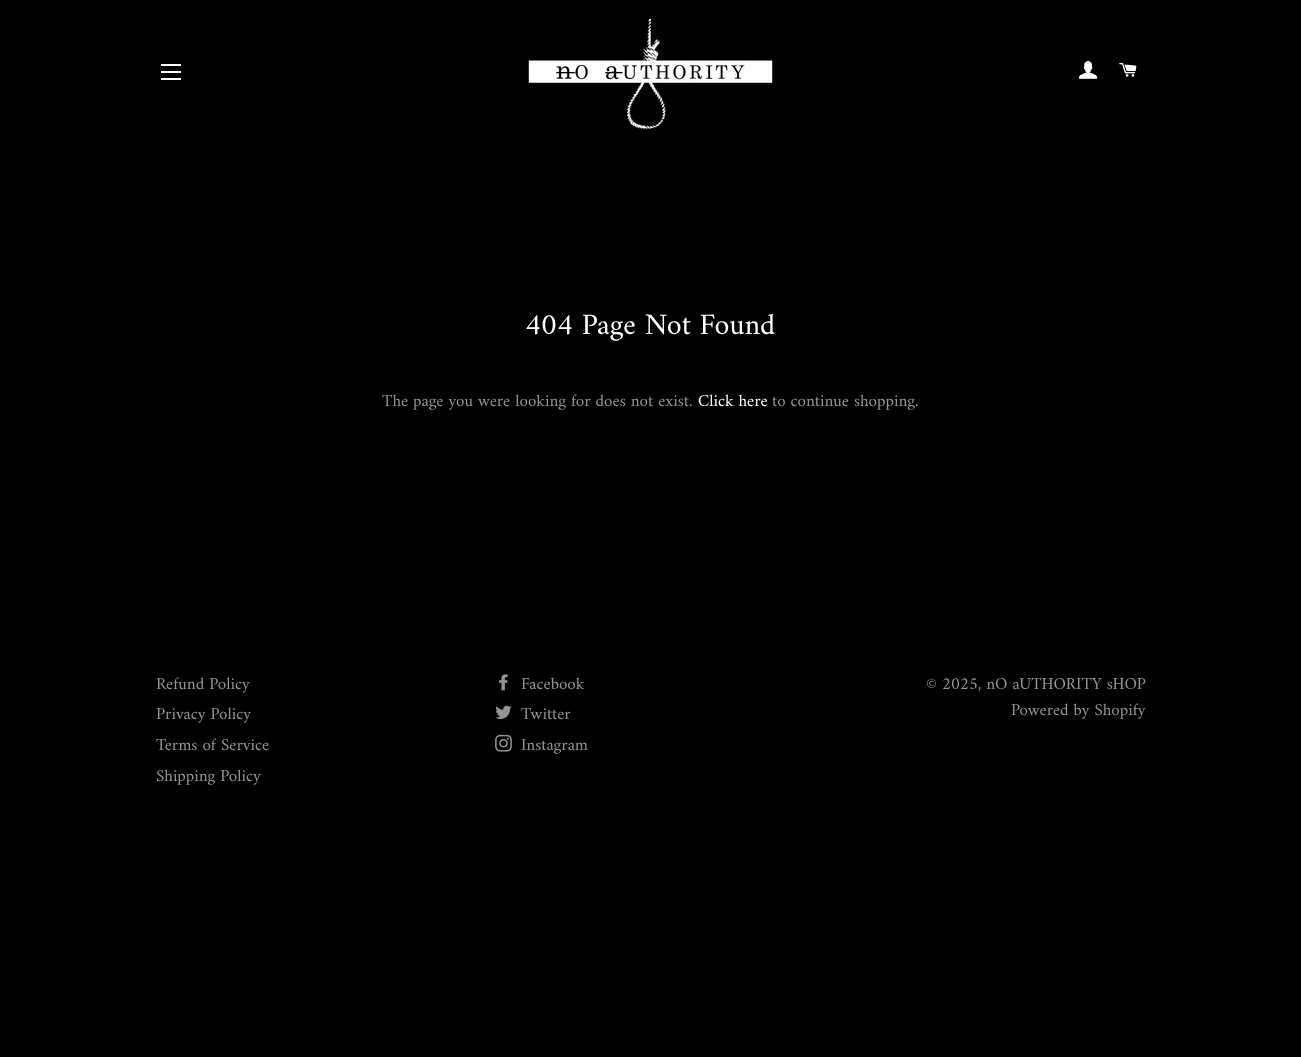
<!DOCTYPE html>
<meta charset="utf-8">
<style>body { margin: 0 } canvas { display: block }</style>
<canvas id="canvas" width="1301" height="1057"></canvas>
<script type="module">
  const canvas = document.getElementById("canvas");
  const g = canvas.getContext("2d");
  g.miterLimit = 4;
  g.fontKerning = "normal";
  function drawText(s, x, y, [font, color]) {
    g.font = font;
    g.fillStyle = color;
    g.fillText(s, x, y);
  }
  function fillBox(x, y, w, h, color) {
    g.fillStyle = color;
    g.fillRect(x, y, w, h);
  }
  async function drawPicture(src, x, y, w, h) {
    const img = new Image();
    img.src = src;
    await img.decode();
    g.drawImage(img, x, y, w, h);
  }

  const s1 = ["30px Amiri", "#FFFFFF"];
  const s2 = ["17px Amiri", "#949494"];
  const s3 = ["17px Amiri", "#FFFFFF"];

  fillBox(0, 0, 1301, 1057, "#000000");
  fillBox(161, 64, 20, 2, "#FFFFFF");
  fillBox(161, 71, 20, 2, "#FFFFFF");
  fillBox(161, 78, 20, 2, "#FFFFFF");
  await drawPicture("pic1.png", 528, 16, 247, 115);
  await drawPicture("pic2.png", 1079, 60, 19, 19);
  await drawPicture("pic3.png", 1119, 62, 18, 15);
  drawText("404 Page Not Found", 525, 334, s1);
  drawText("The page you were looking for does not exist.", 382, 406, s2);
  drawText("Click here", 698, 406, s3);
  drawText("to continue shopping.", 772, 406, s2);
  drawText("Refund Policy", 156, 689, s2);
  drawText("Privacy Policy", 156, 719, s2);
  drawText("Terms of Service", 156, 750, s2);
  drawText("Shipping Policy", 156, 781, s2);
  await drawPicture("pic4.png", 499, 674, 9, 17);
  drawText("Facebook", 521, 689, s2);
  await drawPicture("pic5.png", 495, 705, 17, 14);
  drawText("Twitter", 521, 719, s2);
  await drawPicture("pic6.png", 495, 734, 17, 18);
  drawText("Instagram", 521, 750, s2);
  drawText("© 2025, nO aUTHORITY sHOP", 926, 689, s2);
  drawText("Powered by Shopify", 1011, 715, s2);
</script>
